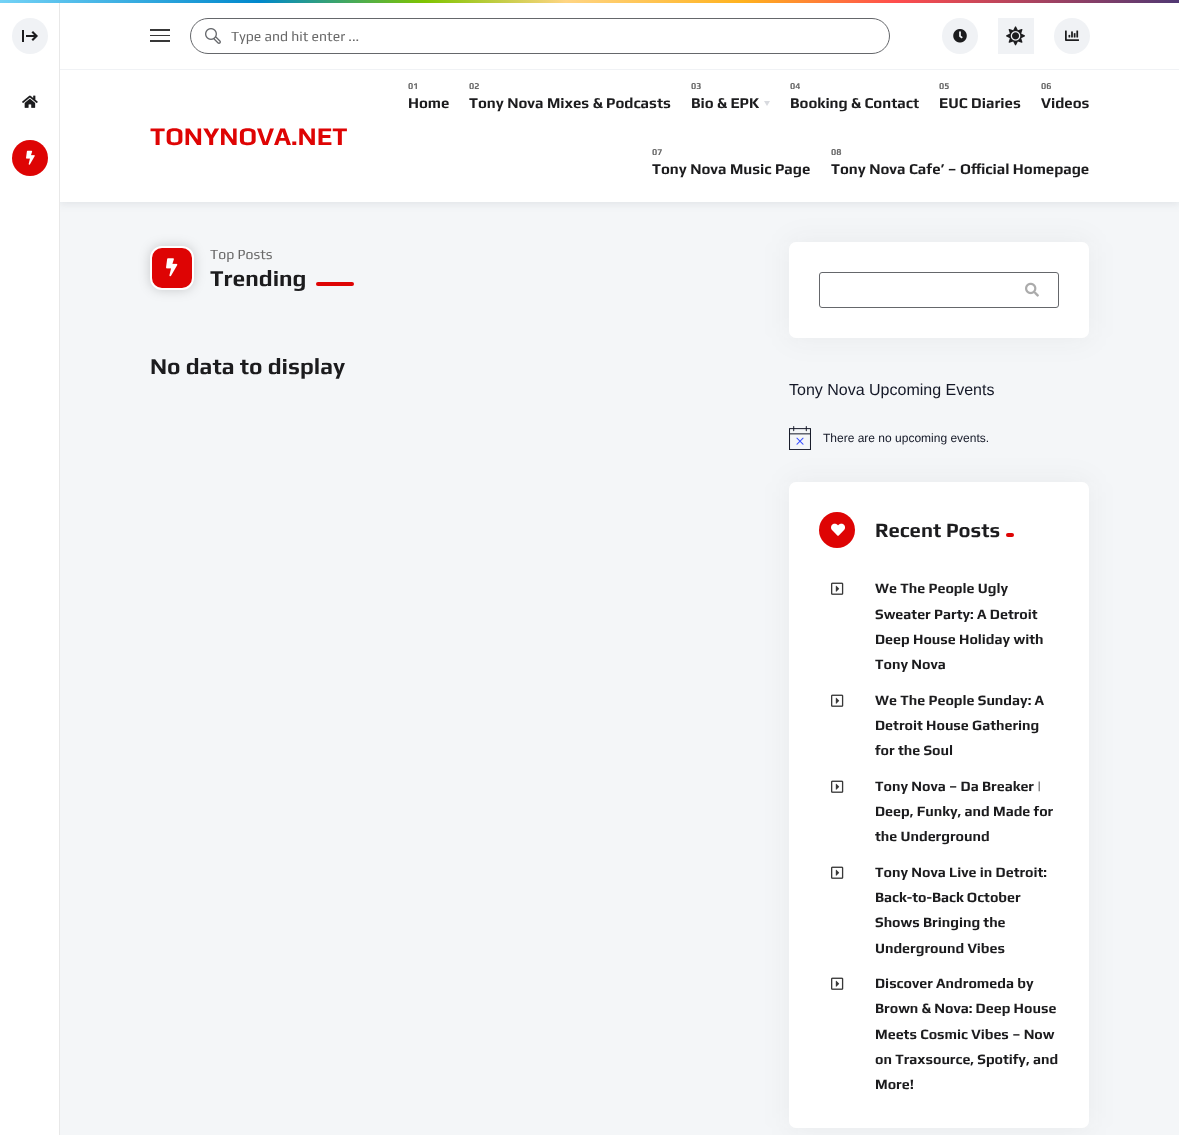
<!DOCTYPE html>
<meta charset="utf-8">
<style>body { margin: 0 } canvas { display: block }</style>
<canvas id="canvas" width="1179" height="1135"></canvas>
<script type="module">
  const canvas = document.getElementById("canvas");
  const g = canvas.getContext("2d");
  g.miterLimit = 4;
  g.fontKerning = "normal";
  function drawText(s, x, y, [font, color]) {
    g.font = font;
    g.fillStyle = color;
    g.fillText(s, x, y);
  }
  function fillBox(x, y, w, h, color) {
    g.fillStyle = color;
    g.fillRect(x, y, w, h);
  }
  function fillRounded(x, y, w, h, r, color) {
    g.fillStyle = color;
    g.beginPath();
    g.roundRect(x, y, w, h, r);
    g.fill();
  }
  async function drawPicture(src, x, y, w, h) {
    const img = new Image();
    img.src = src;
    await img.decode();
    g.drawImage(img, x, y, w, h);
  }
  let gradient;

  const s1 = ["14px Play", "#686868"];
  const s2 = ["bold 25.5px Play", "#DE0404"];
  const s3 = ["bold 9px Play", "#686868"];
  const s4 = ["bold 15px Play", "#1C1C1E"];
  const s5 = ["bold 22.75px Play", "#1C1C1E"];
  const s6 = ["16px Liberation Sans", "#141827"];
  const s7 = ["12px Liberation Sans", "#141827"];
  const s8 = ["bold 20.25px Play", "#1C1C1E"];
  const s9 = ["bold 14.25px Play", "#1C1C1E"];

  fillBox(0, 0, 1179, 1135, "#F4F6F8");
  g.fillStyle = "rgba(28, 45, 66, 0.09)";
  g.filter = "blur(4px)";
  g.beginPath();
  g.rect(59, 70, 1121, 134);
  g.fill();
  g.filter = "none";
  fillBox(0, 3, 59, 1132, "#FFFFFF");
  fillBox(59, 0, 1, 1135, "#E8E8E8");
  g.fillStyle = "#F0F2F5";
  g.beginPath();
  g.arc(30, 36, 18, 0, Math.PI * 2);
  g.fill();
  await drawPicture("pic1.png", 22, 30, 16, 12);
  await drawPicture("pic2.png", 22, 95, 16, 13);
  g.fillStyle = "#DE0404";
  g.beginPath();
  g.arc(30, 158, 18, 0, Math.PI * 2);
  g.fill();
  await drawPicture("pic3.png", 26, 150, 9, 15);
  gradient = g.createLinearGradient(0, 1.5, 1179, 1.5);
  gradient.addColorStop(0, "#73D2F6");
  gradient.addColorStop(0.22, "#0088CC");
  gradient.addColorStop(0.36, "#7FC400");
  gradient.addColorStop(0.48, "#FFD583");
  gradient.addColorStop(0.63, "#FFB21E");
  gradient.addColorStop(0.76, "#FF4D4D");
  gradient.addColorStop(1, "#503873");
  g.fillStyle = gradient;
  g.fillRect(0, 0, 1179, 3);
  fillBox(60, 3, 1119, 66, "#FFFFFF");
  fillBox(60, 69, 1119, 1, "#F0F2F5");
  fillBox(150, 29, 20, 2, "#383838");
  fillBox(150, 35, 20, 1, "#383838");
  fillBox(150, 40, 20, 2, "#383838");
  await drawPicture("pic4.png", 205, 28, 16, 16);
  g.beginPath();
  g.roundRect(190.5, 18.5, 699, 35, 17.5);
  g.strokeStyle = "#65676B";
  g.stroke();
  drawText("Type and hit enter ...", 231, 41, s1);
  g.fillStyle = "#F0F2F5";
  g.beginPath();
  g.arc(960, 36, 18, 0, Math.PI * 2);
  g.fill();
  await drawPicture("pic5.png", 953, 29, 14, 14);
  fillBox(998, 18, 36, 36, "#F0F2F5");
  await drawPicture("pic6.png", 1006, 26, 19, 20);
  g.beginPath();
  g.arc(1072, 36, 18, 0, Math.PI * 2);
  g.fill();
  await drawPicture("pic7.png", 1065, 30, 14, 11);
  g.fillStyle = "rgba(28, 28, 30, 0.06)";
  g.filter = "blur(14px)";
  g.beginPath();
  g.roundRect(789, 242, 300, 96, 7);
  g.fill();
  g.filter = "none";
  fillBox(60, 70, 1119, 132, "#FFFFFF");
  drawText("TONYNOVA.NET", 150, 145, s2);
  drawText("01", 408, 89, s3);
  drawText("Home", 408, 108, s4);
  drawText("02", 469, 89, s3);
  drawText("Tony Nova Mixes & Podcasts", 469, 108, s4);
  drawText("03", 691, 89, s3);
  drawText("Bio & EPK", 691, 108, s4);
  g.fillStyle = "#D8DADF";
  g.beginPath();
  g.moveTo(764, 101);
  g.lineTo(770, 101);
  g.lineTo(767, 106);
  g.closePath();
  g.fill();
  drawText("04", 790, 89, s3);
  drawText("Booking & Contact", 790, 108, s4);
  drawText("05", 939, 89, s3);
  drawText("EUC Diaries", 939, 108, s4);
  drawText("06", 1041, 89, s3);
  drawText("Videos", 1041, 108, s4);
  drawText("07", 652, 155, s3);
  drawText("Tony Nova Music Page", 652, 174, s4);
  drawText("08", 831, 155, s3);
  drawText("Tony Nova Cafe’ – Official Homepage", 831, 174, s4);
  g.fillStyle = "rgba(0, 0, 0, 0.18)";
  g.filter = "blur(6px)";
  g.beginPath();
  g.roundRect(150, 246, 44, 44, 12);
  g.fill();
  g.filter = "none";
  g.fillStyle = "#DE0404";
  g.beginPath();
  g.roundRect(151, 247, 42, 42, 11);
  g.fill();
  g.strokeStyle = "#FFFFFF";
  g.lineWidth = 2;
  g.stroke();
  await drawPicture("pic8.png", 166, 258, 12, 19);
  drawText("Top Posts", 210, 259, s1);
  drawText("Trending", 210, 286, s5);
  fillRounded(316, 282, 38, 4, 2, "#DE0404");
  drawText("No data to display", 150, 374, s5);
  fillRounded(789, 242, 300, 96, 7, "#FFFFFF");
  g.beginPath();
  g.roundRect(819.5, 272.5, 239, 35, 2.5);
  g.strokeStyle = "#65676B";
  g.lineWidth = 1;
  g.stroke();
  await drawPicture("pic9.png", 1025, 282, 14, 15);
  drawText("Tony Nova Upcoming Events", 789, 395, s6);
  g.fillStyle = "rgba(28, 28, 30, 0.06)";
  g.filter = "blur(14px)";
  g.beginPath();
  g.roundRect(789, 482, 300, 646, 7);
  g.fill();
  g.filter = "none";
  await drawPicture("pic10.png", 789, 426, 22, 24);
  drawText("There are no upcoming events.", 823, 442, s7);
  fillRounded(789, 482, 300, 646, 7, "#FFFFFF");
  g.fillStyle = "#DE0404";
  g.beginPath();
  g.arc(837, 530, 18, 0, Math.PI * 2);
  g.fill();
  await drawPicture("pic11.png", 831, 523, 14, 13);
  drawText("Recent Posts", 875, 537, s8);
  fillRounded(1006, 533, 8, 4, 2, "#DE0404");
  await drawPicture("pic12.png", 831, 582, 13, 13);
  drawText("We The People Ugly", 875, 593, s9);
  drawText("Sweater Party: A Detroit", 875, 619, s9);
  drawText("Deep House Holiday with", 875, 644, s9);
  drawText("Tony Nova", 875, 669, s9);
  await drawPicture("pic12.png", 831, 694, 13, 13);
  drawText("We The People Sunday: A", 875, 705, s9);
  drawText("Detroit House Gathering", 875, 730, s9);
  drawText("for the Soul", 875, 755, s9);
  await drawPicture("pic12.png", 831, 780, 13, 13);
  drawText("Tony Nova – Da Breaker |", 875, 791, s9);
  drawText("Deep, Funky, and Made for", 875, 816, s9);
  drawText("the Underground", 875, 841, s9);
  await drawPicture("pic12.png", 831, 866, 13, 13);
  drawText("Tony Nova Live in Detroit:", 875, 877, s9);
  drawText("Back-to-Back October", 875, 902, s9);
  drawText("Shows Bringing the", 875, 927, s9);
  drawText("Underground Vibes", 875, 953, s9);
  await drawPicture("pic12.png", 831, 977, 13, 13);
  drawText("Discover Andromeda by", 875, 988, s9);
  drawText("Brown & Nova: Deep House", 875, 1013, s9);
  drawText("Meets Cosmic Vibes – Now", 875, 1039, s9);
  drawText("on Traxsource, Spotify, and", 875, 1064, s9);
  drawText("More!", 875, 1089, s9);
</script>
